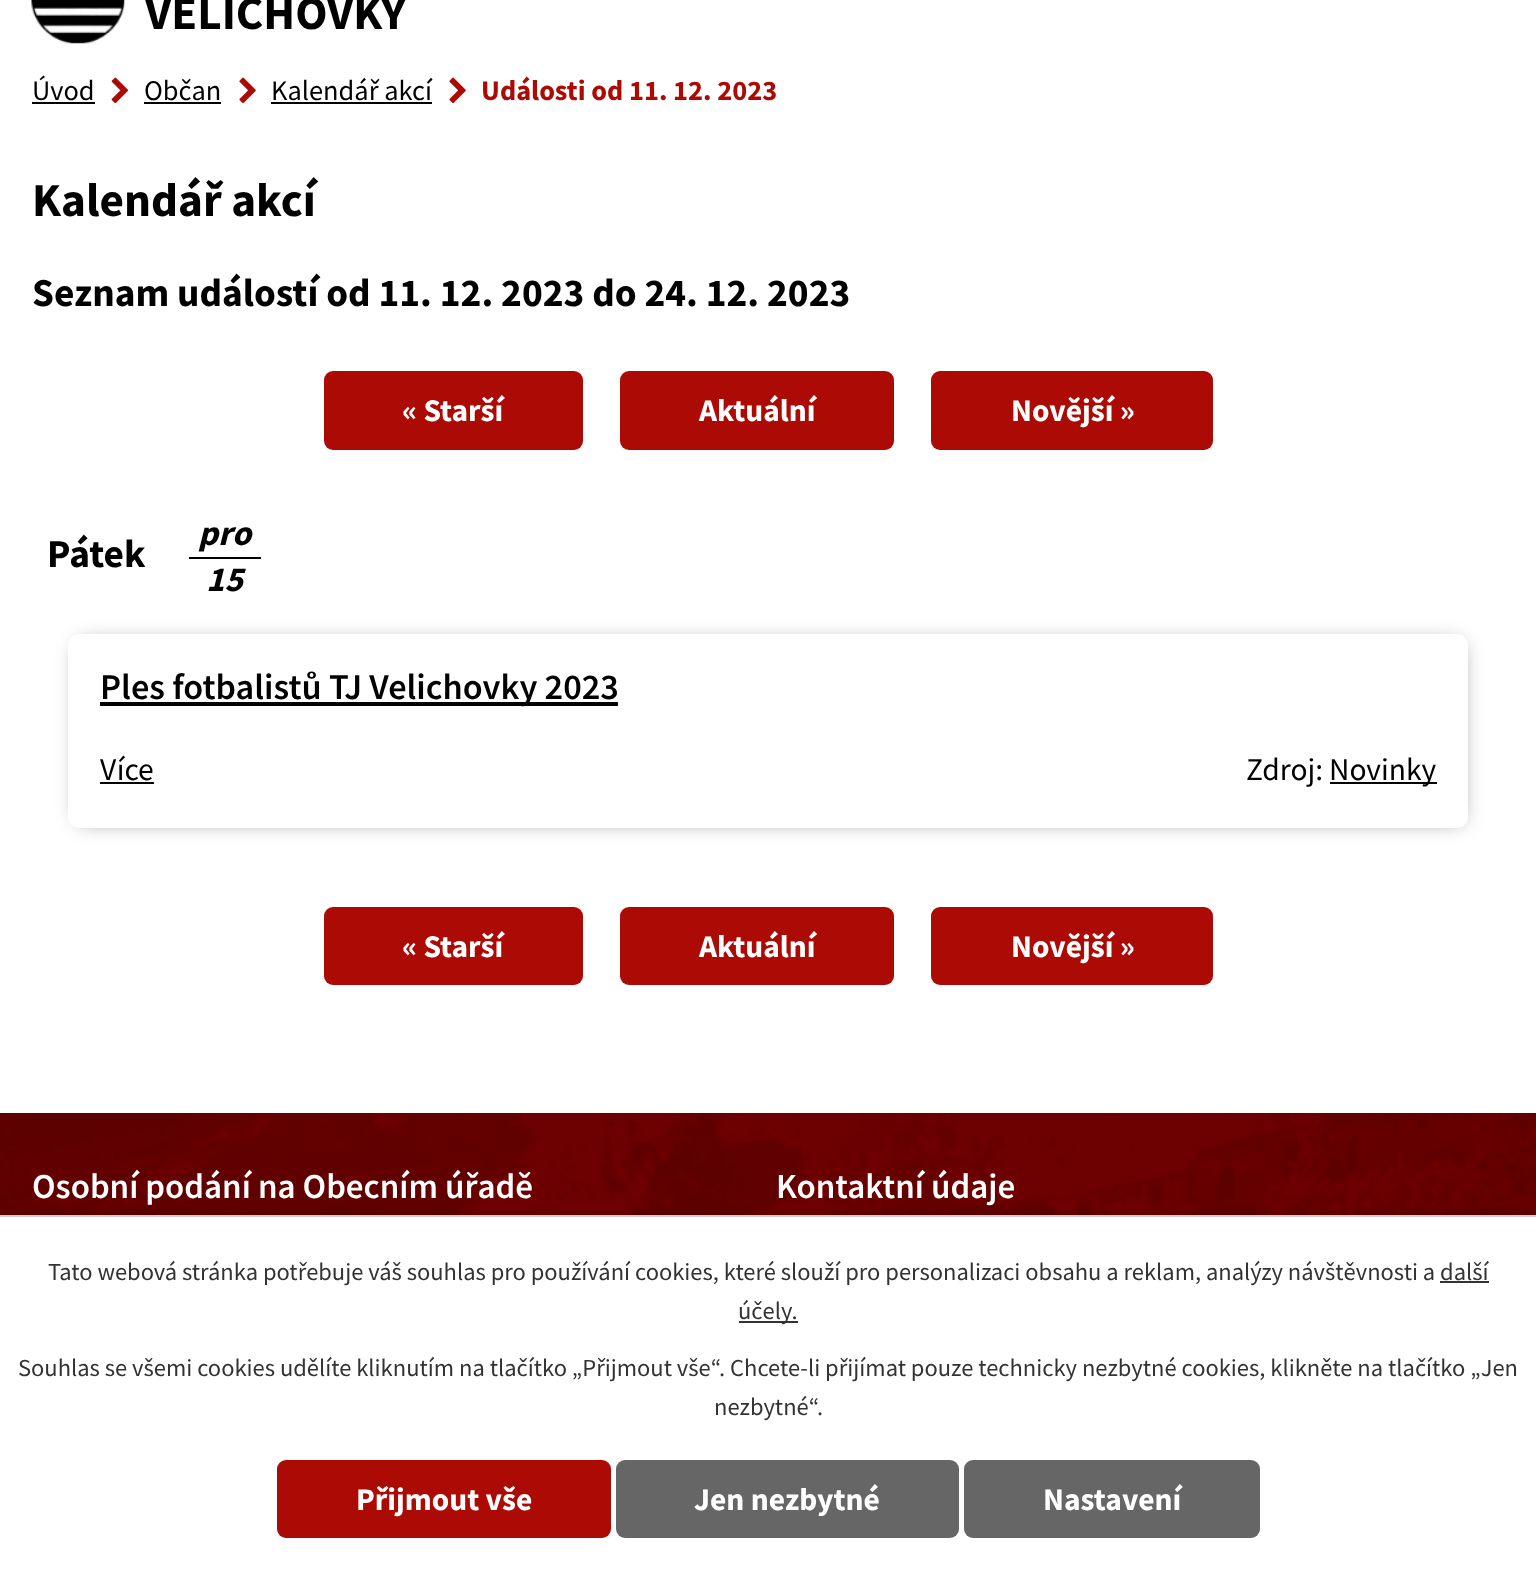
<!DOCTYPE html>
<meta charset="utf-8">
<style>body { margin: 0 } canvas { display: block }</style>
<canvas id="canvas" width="1536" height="1571"></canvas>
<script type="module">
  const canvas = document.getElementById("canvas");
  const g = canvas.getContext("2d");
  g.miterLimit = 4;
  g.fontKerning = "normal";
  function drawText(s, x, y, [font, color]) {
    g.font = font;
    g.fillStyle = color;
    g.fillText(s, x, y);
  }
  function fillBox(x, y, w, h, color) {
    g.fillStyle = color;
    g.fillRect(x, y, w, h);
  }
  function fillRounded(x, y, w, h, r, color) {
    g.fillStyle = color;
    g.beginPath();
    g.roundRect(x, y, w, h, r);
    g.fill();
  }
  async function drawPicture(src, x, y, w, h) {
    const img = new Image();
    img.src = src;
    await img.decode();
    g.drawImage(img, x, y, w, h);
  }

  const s1 = ["bold 47.25px Source Sans Pro", "#000000"];
  const s2 = ["28.4px Source Sans Pro", "#000000"];
  const s3 = ["bold 28.4px Source Sans Pro", "#AC0A04"];
  const s4 = ["bold 39.4px Source Sans Pro", "#000000"];
  const s5 = ["bold 31.5px Source Sans Pro", "#FFFFFF"];
  const s6 = ["italic bold 35px Source Sans Pro", "#000000"];
  const s7 = ["600 36.25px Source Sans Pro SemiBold", "#000000"];
  const s8 = ["31.5px Source Sans Pro", "#000000"];
  const s9 = ["600 35px Source Sans Pro SemiBold", "#FFFFFF"];
  const s10 = ["24.5px Source Sans Pro", "#333333"];

  fillBox(0, 0, 1536, 1571, "#FFFFFF");
  await drawPicture("pic1.png", 31, 0, 94, 44);
  drawText("VELICHOVKY", 145, 29, s1);
  drawText("Úvod", 32, 100, s2);
  fillBox(32, 102, 63, 2, "#000000");
  await drawPicture("pic2.png", 111, 77, 17, 27);
  drawText("Občan", 144, 100, s2);
  fillBox(144, 102, 77, 2, "#000000");
  await drawPicture("pic3.png", 239, 77, 17, 27);
  drawText("Kalendář akcí", 271, 100, s2);
  fillBox(271, 102, 161, 2, "#000000");
  await drawPicture("pic3.png", 449, 77, 17, 27);
  drawText("Události od 11. 12. 2023", 481, 100, s3);
  drawText("Kalendář akcí", 32, 216, s1);
  drawText("Seznam událostí od 11. 12. 2023 do 24. 12. 2023", 32, 306, s4);
  fillRounded(324, 371, 259, 79, 9, "#AC0A04");
  drawText("« Starší", 402, 421, s5);
  fillRounded(620, 371, 274, 79, 9, "#AC0A04");
  drawText("Aktuální", 699, 421, s5);
  fillRounded(931, 371, 282, 79, 9, "#AC0A04");
  drawText("Novější »", 1011, 421, s5);
  drawText("Pátek", 47, 567, s4);
  fillBox(189, 557, 72, 2, "#010101");
  drawText("pro", 198, 545, s6);
  drawText("15", 206, 591, s6);
  g.save();
  g.beginPath();
  g.moveTo(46, 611);
  g.lineTo(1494, 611);
  g.lineTo(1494, 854);
  g.lineTo(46, 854);
  g.closePath();
  g.moveTo(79, 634);
  g.lineTo(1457, 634);
  g.bezierCurveTo(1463, 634, 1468, 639, 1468, 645);
  g.lineTo(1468, 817);
  g.bezierCurveTo(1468, 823, 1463, 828, 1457, 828);
  g.lineTo(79, 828);
  g.bezierCurveTo(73, 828, 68, 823, 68, 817);
  g.lineTo(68, 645);
  g.bezierCurveTo(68, 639, 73, 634, 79, 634);
  g.closePath();
  g.clip("evenodd");
  g.fillStyle = "#888888";
  g.filter = "blur(10.5px)";
  g.beginPath();
  g.roundRect(79, 644, 1382, 177, 2);
  g.fill();
  g.filter = "none";
  g.restore();
  fillBox(100, 702, 518, 4, "#010101");
  drawText("Ples fotbalistů TJ Velichovky 2023", 100, 699, s7);
  drawText("Více", 100, 780, s8);
  fillBox(100, 782, 54, 2, "#010101");
  drawText("Zdroj:", 1246, 780, s8);
  fillBox(1330, 782, 107, 2, "#010101");
  drawText("Novinky", 1329, 780, s8);
  fillRounded(324, 907, 259, 78, 9, "#AC0A04");
  drawText("« Starší", 402, 957, s5);
  fillRounded(620, 907, 274, 78, 9, "#AC0A04");
  drawText("Aktuální", 699, 957, s5);
  fillRounded(931, 907, 282, 78, 9, "#AC0A04");
  drawText("Novější »", 1011, 957, s5);
  await drawPicture("pic4.png", 0, 1113, 1536, 102);
  drawText("Osobní podání na Obecním úřadě", 32, 1198, s9);
  drawText("Kontaktní údaje", 776, 1198, s9);
  g.fillStyle = "rgba(0, 0, 0, 0.2)";
  g.filter = "blur(4.5px)";
  g.beginPath();
  g.rect(0, 1215, 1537, 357);
  g.fill();
  g.filter = "none";
  fillBox(0, 1217, 1536, 354, "#FFFFFF");
  fillBox(0, 1215, 1536, 2, "#CCCCCC");
  drawText("Tato webová stránka potřebuje váš souhlas pro používání cookies, které slouží pro personalizaci obsahu a reklam, analýzy návštěvnosti a další", 48, 1280, s10);
  fillBox(739, 1321, 59, 2, "#333333");
  drawText("účely.", 738, 1319, s10);
  fillBox(1440, 1281, 49, 2, "#333333");
  drawText("Souhlas se všemi cookies udělíte kliknutím na tlačítko „Přijmout vše“. Chcete-li přijímat pouze technicky nezbytné cookies, klikněte na tlačítko „Jen", 18, 1376, s10);
  drawText("nezbytné“.", 714, 1415, s10);
  fillRounded(277, 1460, 334, 78, 9, "#AC0A04");
  drawText("Přijmout vše", 356, 1510, s5);
  fillRounded(616, 1460, 343, 78, 9, "#666666");
  drawText("Jen nezbytné", 694, 1510, s5);
  fillRounded(964, 1460, 296, 78, 9, "#666666");
  drawText("Nastavení", 1043, 1510, s5);
</script>
